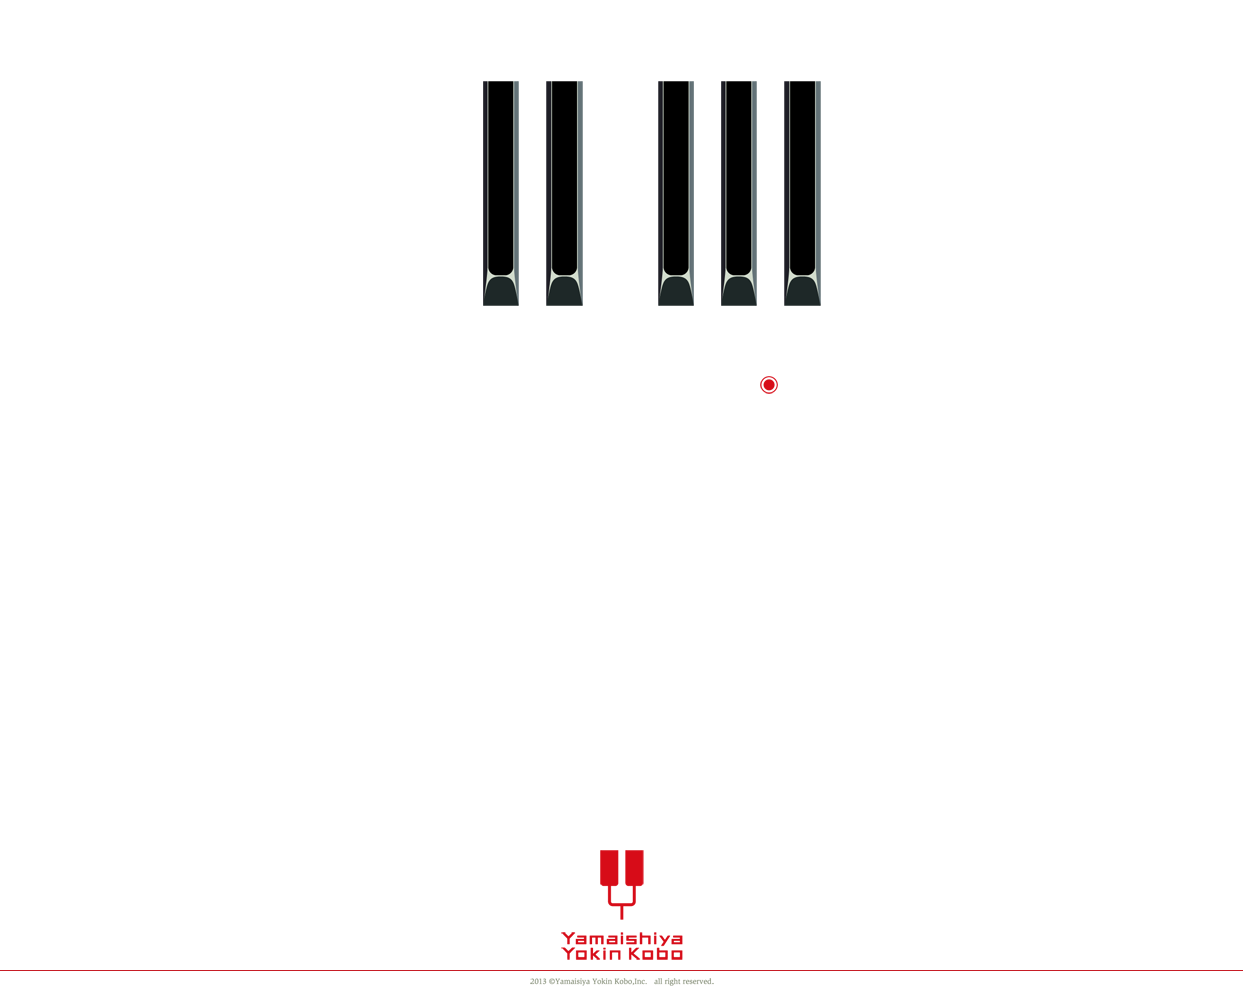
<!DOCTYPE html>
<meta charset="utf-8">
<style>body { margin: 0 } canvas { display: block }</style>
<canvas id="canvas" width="1243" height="991"></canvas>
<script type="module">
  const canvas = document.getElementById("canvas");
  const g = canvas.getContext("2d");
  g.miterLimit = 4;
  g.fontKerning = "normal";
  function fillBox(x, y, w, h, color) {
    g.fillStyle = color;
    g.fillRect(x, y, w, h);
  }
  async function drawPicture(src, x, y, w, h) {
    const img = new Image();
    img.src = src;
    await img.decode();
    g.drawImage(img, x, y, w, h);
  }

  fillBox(0, 0, 1243, 991, "#FFFFFF");
  await drawPicture("pic1.png", 483, 81, 36, 225);
  await drawPicture("pic2.png", 546, 81, 37, 225);
  await drawPicture("pic3.png", 658, 81, 36, 225);
  await drawPicture("pic4.png", 721, 81, 36, 225);
  await drawPicture("pic5.png", 784, 81, 37, 225);
  await drawPicture("pic6.png", 760, 376, 18, 18);
  await drawPicture("pic7.png", 561, 850, 122, 110);
  fillBox(0, 970, 1243, 1, "#C71C25");
  await drawPicture("pic8.png", 530, 978, 184, 8);
</script>
